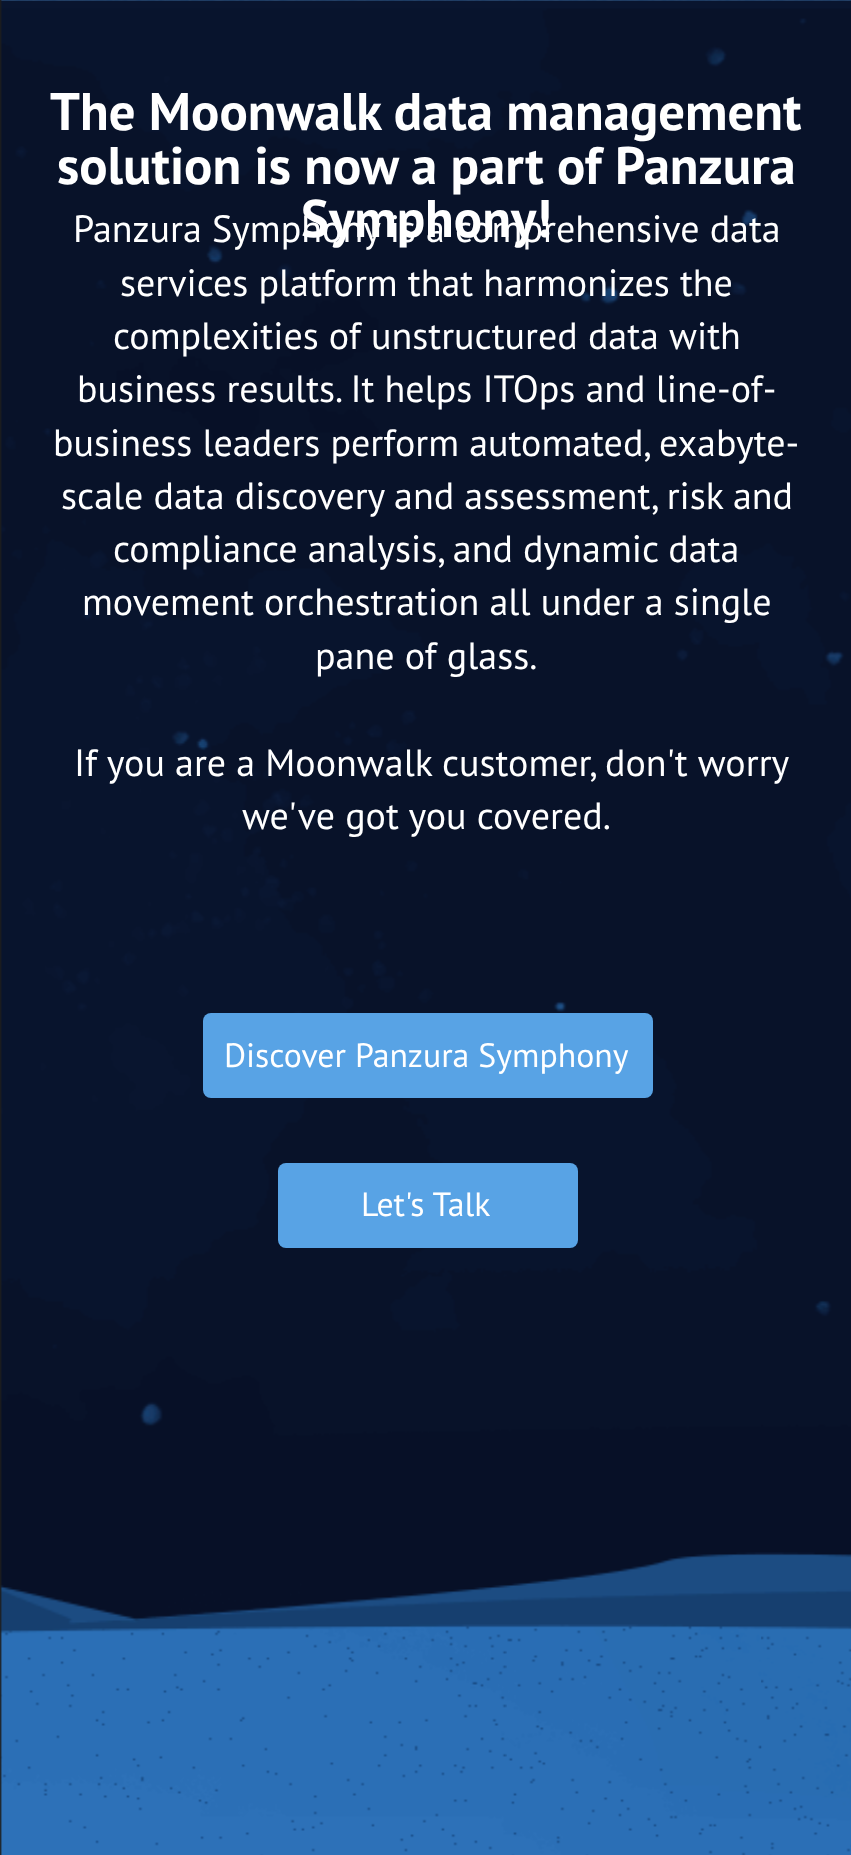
<!DOCTYPE html>
<meta charset="utf-8">
<style>body { margin: 0 } canvas { display: block }</style>
<canvas id="canvas" width="851" height="1855"></canvas>
<script type="module">
  const canvas = document.getElementById("canvas");
  const g = canvas.getContext("2d");
  g.miterLimit = 4;
  g.fontKerning = "normal";
  function drawText(s, x, y, [font, color]) {
    g.font = font;
    g.fillStyle = color;
    g.fillText(s, x, y);
  }
  function fillBox(x, y, w, h, color) {
    g.fillStyle = color;
    g.fillRect(x, y, w, h);
  }
  function fillRounded(x, y, w, h, r, color) {
    g.fillStyle = color;
    g.beginPath();
    g.roundRect(x, y, w, h, r);
    g.fill();
  }
  async function drawPicture(src, x, y, w, h) {
    const img = new Image();
    img.src = src;
    await img.decode();
    g.drawImage(img, x, y, w, h);
  }

  const s1 = ["bold 52.75px PT Sans", "#FFFFFF"];
  const s2 = ["38px PT Sans", "#FFFFFF"];
  const s3 = ["33.75px PT Sans", "#FFFFFF"];

  fillBox(0, 0, 851, 1855, "#1E1E1E");
  await drawPicture("pic1.png", 0, 0, 851, 1855);
  drawText("The Moonwalk data management", 50, 130, s1);
  drawText("solution is now a part of Panzura", 57, 184, s1);
  drawText("Symphony!", 301, 237, s1);
  drawText("Panzura Symphony is a comprehensive data", 73, 242, s2);
  drawText("services platform that harmonizes the", 120, 296, s2);
  drawText("complexities of unstructured data with", 113, 349, s2);
  drawText("business results. It helps ITOps and line-of-", 77, 402, s2);
  drawText("business leaders perform automated, exabyte-", 53, 456, s2);
  drawText("scale data discovery and assessment, risk and", 61, 509, s2);
  drawText("compliance analysis, and dynamic data", 113, 562, s2);
  drawText("movement orchestration all under a single", 82, 615, s2);
  drawText("pane of glass.", 315, 669, s2);
  drawText("If you are a Moonwalk customer, don't worry", 74, 776, s2);
  drawText("we've got you covered.", 242, 829, s2);
  fillRounded(203, 1013, 450, 85, 8, "#58A3E5");
  drawText("Discover Panzura Symphony", 224, 1067, s3);
  fillRounded(278, 1163, 300, 85, 8, "#58A3E5");
  drawText("Let's Talk", 361, 1216, s3);
</script>
